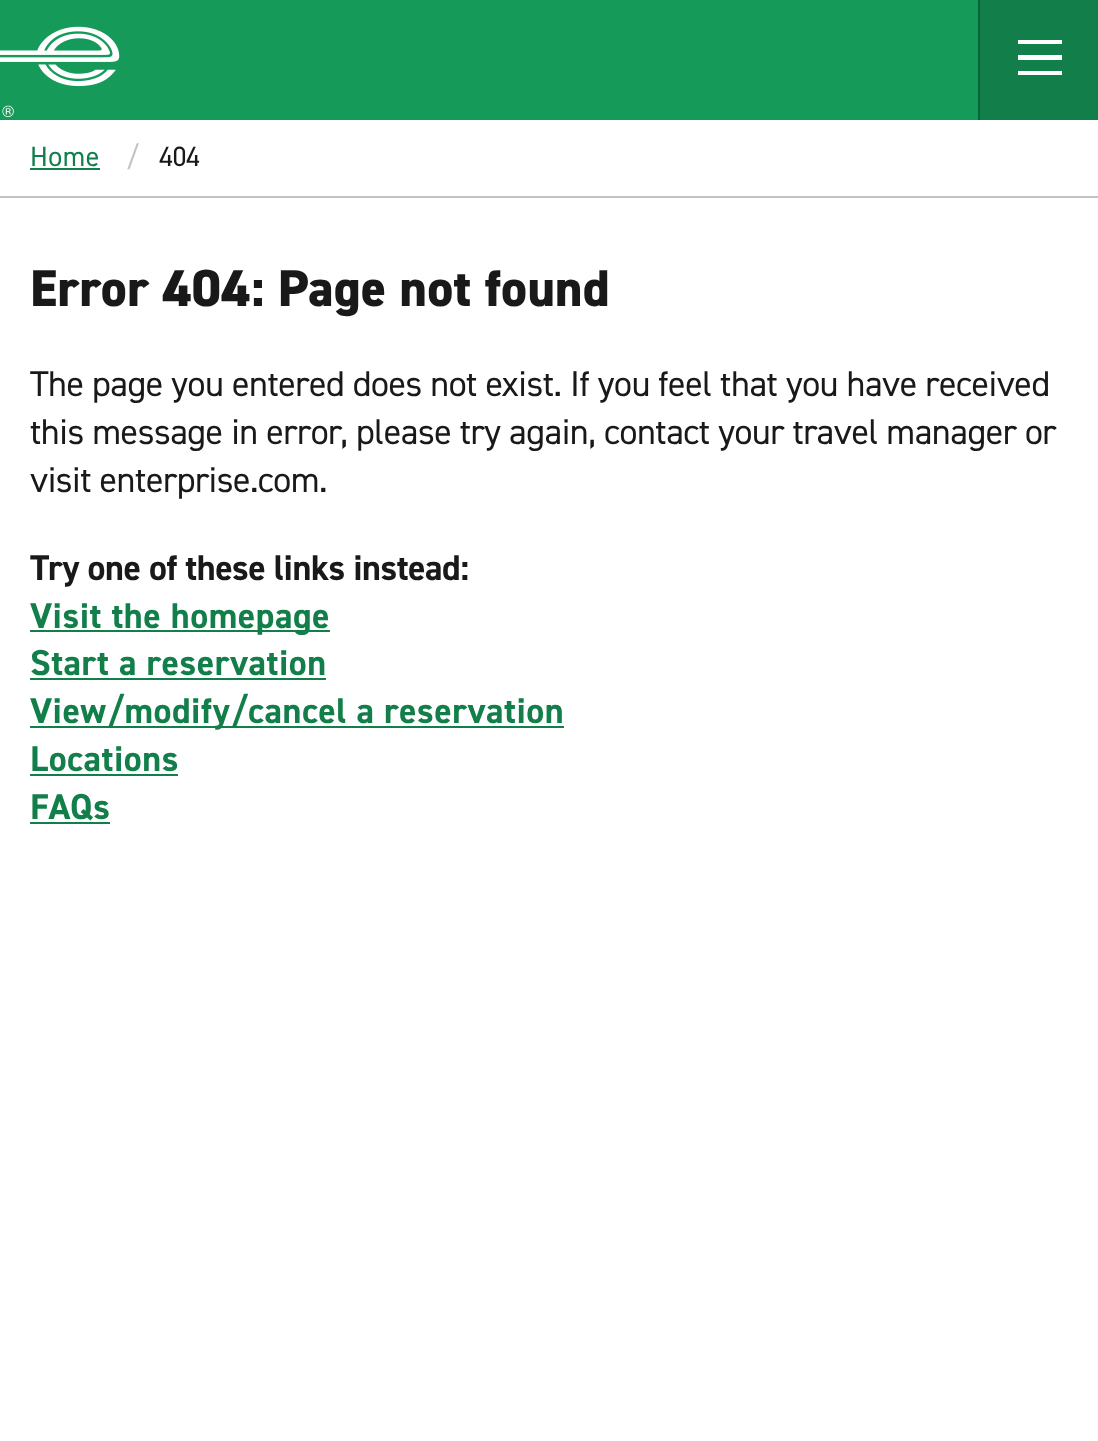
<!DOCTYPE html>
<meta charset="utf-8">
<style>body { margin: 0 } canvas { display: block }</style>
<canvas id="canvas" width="1098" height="1441"></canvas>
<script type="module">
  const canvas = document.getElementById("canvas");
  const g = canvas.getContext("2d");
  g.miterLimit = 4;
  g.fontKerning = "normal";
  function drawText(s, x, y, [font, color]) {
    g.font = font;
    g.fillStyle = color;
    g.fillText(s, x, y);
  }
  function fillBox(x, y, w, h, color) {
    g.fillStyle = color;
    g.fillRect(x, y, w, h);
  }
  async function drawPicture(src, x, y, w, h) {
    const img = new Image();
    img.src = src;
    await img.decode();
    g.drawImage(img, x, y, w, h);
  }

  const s1 = ["28px 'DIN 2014'", "#127F4A"];
  const s2 = ["28px 'DIN 2014'", "#C3C3C3"];
  const s3 = ["28px 'DIN 2014'", "#181918"];
  const s4 = ["800 52px 'DIN 2014'", "#181918"];
  const s5 = ["36px 'DIN 2014'", "#181918"];
  const s6 = ["bold 36px 'DIN 2014'", "#181918"];
  const s7 = ["bold 36px 'DIN 2014'", "#127F4A"];

  fillBox(0, 0, 1098, 1441, "#FFFFFF");
  fillBox(0, 0, 978, 120, "#169A5A");
  await drawPicture("pic1.png", 0, 26, 120, 91);
  fillBox(980, 0, 118, 120, "#127F4A");
  fillBox(978, 0, 2, 120, "#006639");
  fillBox(1018, 71, 44, 4, "#FFFFFF");
  fillBox(1018, 55, 44, 5, "#FFFFFF");
  fillBox(1018, 40, 44, 4, "#FFFFFF");
  fillBox(0, 196, 1098, 2, "#C3C3C3");
  g.letterSpacing = "0.5px";
  drawText("Home", 30, 166, s1);
  fillBox(30, 168, 70, 2, "#127F4A");
  g.letterSpacing = "-0.5px";
  drawText("/", 126, 166, s2);
  drawText("404", 159, 166, s3);
  g.letterSpacing = "0.3px";
  drawText("Error 404: Page not found", 30, 306, s4);
  g.letterSpacing = "-0.5px";
  drawText("The page you entered does not exist. If you feel that you have received", 30, 396, s5);
  drawText("this message in error, please try again, contact your travel manager or", 30, 444, s5);
  drawText("visit enterprise.com.", 30, 492, s5);
  drawText("Try one of these links instead:", 30, 580, s6);
  fillBox(30, 630, 300, 2, "#127F4A");
  g.letterSpacing = "0.5px";
  drawText("Visit the homepage", 30, 628, s7);
  drawText("Start a reservation", 30, 675, s7);
  fillBox(30, 678, 296, 2, "#127F4A");
  fillBox(30, 726, 534, 2, "#127F4A");
  drawText("View/modify/cancel a reservation", 30, 723, s7);
  drawText("Locations", 30, 771, s7);
  fillBox(30, 774, 148, 2, "#127F4A");
  drawText("FAQs", 30, 819, s7);
  fillBox(30, 822, 80, 2, "#127F4A");
</script>
